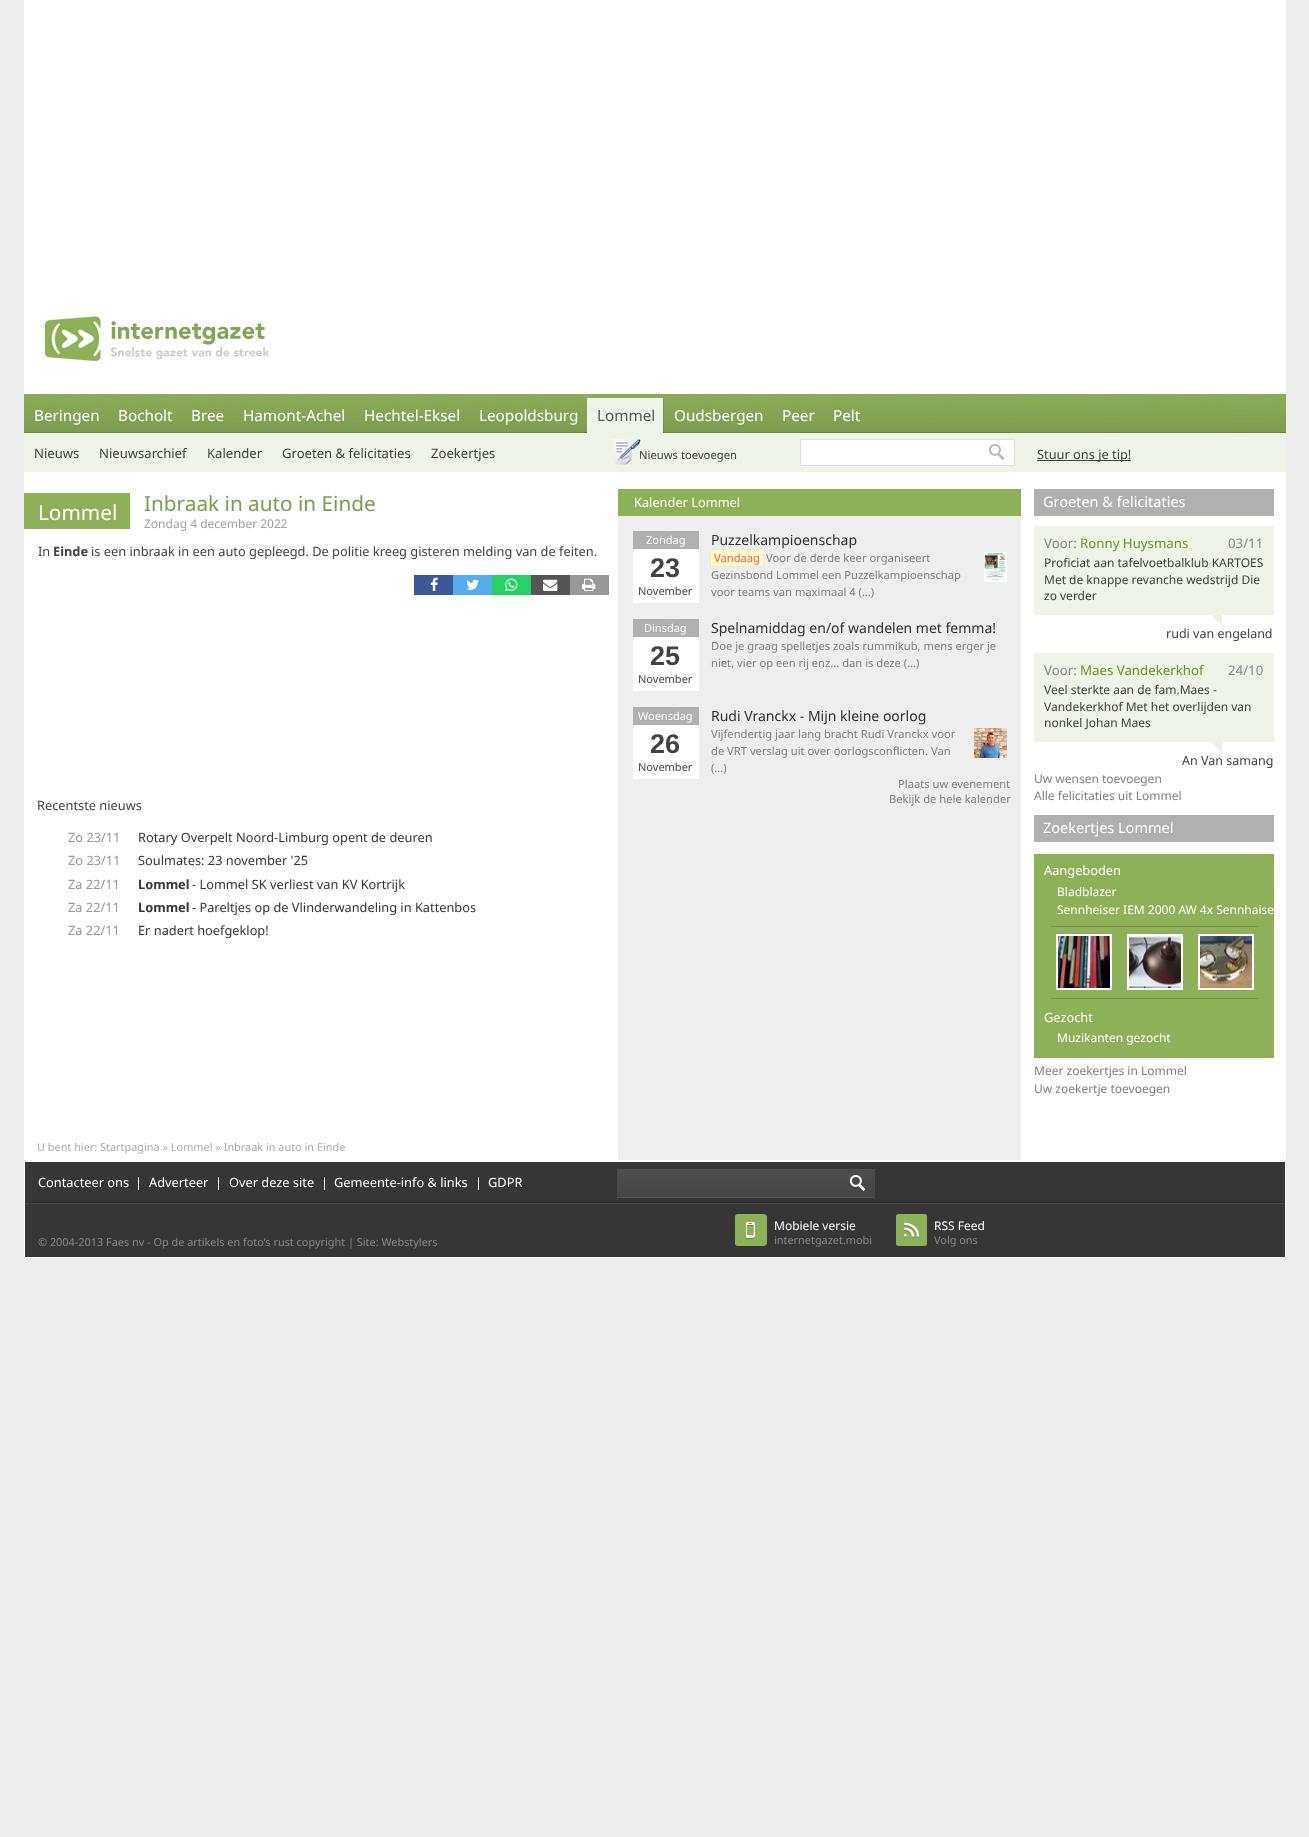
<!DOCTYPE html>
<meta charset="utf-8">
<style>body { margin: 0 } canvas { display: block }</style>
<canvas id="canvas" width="1309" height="1837"></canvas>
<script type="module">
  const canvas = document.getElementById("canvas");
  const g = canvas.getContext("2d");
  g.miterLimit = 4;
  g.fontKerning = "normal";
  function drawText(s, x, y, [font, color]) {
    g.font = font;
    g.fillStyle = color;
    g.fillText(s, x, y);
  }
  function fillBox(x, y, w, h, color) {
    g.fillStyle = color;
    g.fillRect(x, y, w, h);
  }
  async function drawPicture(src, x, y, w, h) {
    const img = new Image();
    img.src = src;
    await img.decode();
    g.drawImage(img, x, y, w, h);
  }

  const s1 = ["15.25px Noto Sans", "#FFFFFF"];
  const s2 = ["15.25px Noto Sans", "#555555"];
  const s3 = ["13.1px Noto Sans", "#424242"];
  const s4 = ["11.25px Noto Sans", "#424242"];
  const s5 = ["12.8px Noto Sans", "#424242"];
  const s6 = ["20.75px Noto Sans", "#FFFFFF"];
  const s7 = ["20.75px Noto Sans", "#7D9C4E"];
  const s8 = ["12px Noto Sans", "#A1A1A1"];
  const s9 = ["bold 12.8px Noto Sans", "#424242"];
  const s10 = ["12.8px Noto Sans", "#9A9A9A"];
  const s11 = ["12.8px Noto Sans", "#363636"];
  const s12 = ["bold 12.8px Noto Sans", "#363636"];
  const s13 = ["12.8px Noto Sans", "#FFFFFF"];
  const s14 = ["11px Noto Sans", "#FFFFFF"];
  const s15 = ["bold 27px Liberation Sans", "#424242"];
  const s16 = ["11px Noto Sans", "#424242"];
  const s17 = ["14px Noto Sans", "#303030"];
  const s18 = ["11.2px Noto Sans", "#E75B53"];
  const s19 = ["11.2px Noto Sans", "#808080"];
  const s20 = ["14.5px Noto Sans", "#FFFFFF"];
  const s21 = ["13.25px Noto Sans", "#898989"];
  const s22 = ["13.25px Noto Sans", "#6C942E"];
  const s23 = ["12px Noto Sans", "#424242"];
  const s24 = ["12.5px Noto Sans", "#424242"];
  const s25 = ["12px Noto Sans", "#808080"];
  const s26 = ["12px Noto Sans", "#FFFFFF"];
  const s27 = ["10.9px Noto Sans", "#AAAAAA"];
  const s28 = ["10.9px Noto Sans", "#898989"];

  fillBox(0, 0, 1309, 1837, "#EDEDED");
  fillBox(24, 0, 1262, 280, "#FFFFFF");
  await drawPicture("pic1.png", 24, 472, 1262, 670);
  await drawPicture("pic2.png", 24, 280, 1262, 192);
  drawText("Beringen", 34, 421, s1);
  drawText("Bocholt", 118, 421, s1);
  drawText("Bree", 191, 421, s1);
  drawText("Hamont-Achel", 243, 421, s1);
  drawText("Hechtel-Eksel", 364, 421, s1);
  drawText("Leopoldsburg", 479, 421, s1);
  await drawPicture("pic3.png", 587, 398, 77, 35);
  drawText("Lommel", 597, 421, s2);
  drawText("Oudsbergen", 674, 421, s1);
  drawText("Peer", 782, 421, s1);
  drawText("Pelt", 833, 421, s1);
  drawText("Nieuws", 34, 458, s3);
  drawText("Nieuwsarchief", 99, 458, s3);
  drawText("Kalender", 207, 458, s3);
  drawText("Groeten & felicitaties", 282, 458, s3);
  drawText("Zoekertjes", 431, 458, s3);
  await drawPicture("pic4.png", 613, 439, 28, 26);
  drawText("Nieuws toevoegen", 639, 459, s4);
  fillBox(1037, 460, 94, 1, "#424242");
  drawText("Stuur ons je tip!", 1037, 459, s5);
  fillBox(24, 493, 106, 36, "#8EB059");
  drawText("Lommel", 38, 520, s6);
  drawText("Inbraak in auto in Einde", 144, 511, s7);
  drawText("Zondag 4 december 2022", 144, 528, s8);
  drawText("In", 38, 556, s5);
  drawText("Einde", 53, 556, s9);
  drawText("is een inbraak in een auto gepleegd. De politie kreeg gisteren melding van de feiten.", 91, 556, s5);
  fillBox(414, 575, 39, 20, "#3B5998");
  await drawPicture("pic5.png", 430, 577, 8, 14);
  fillBox(453, 575, 39, 20, "#55ACEE");
  await drawPicture("pic6.png", 466, 579, 13, 11);
  fillBox(492, 575, 39, 20, "#24D266");
  await drawPicture("pic7.png", 505, 578, 13, 13);
  fillBox(531, 575, 39, 20, "#555555");
  await drawPicture("pic8.png", 543, 579, 15, 12);
  fillBox(570, 575, 39, 20, "#999999");
  await drawPicture("pic9.png", 582, 578, 14, 13);
  drawText("Recentste nieuws", 37, 810, s5);
  drawText("Zo 23/11", 68, 842, s10);
  drawText("Rotary Overpelt Noord-Limburg opent de deuren", 138, 842, s11);
  drawText("Zo 23/11", 68, 865, s10);
  drawText("Soulmates: 23 november '25", 138, 865, s11);
  drawText("Za 22/11", 68, 889, s10);
  drawText("Lommel", 138, 889, s12);
  drawText("- Lommel SK verliest van KV Kortrijk", 192, 889, s11);
  drawText("Za 22/11", 68, 912, s10);
  drawText("Lommel", 138, 912, s12);
  drawText("- Pareltjes op de Vlinderwandeling in Kattenbos", 192, 912, s11);
  drawText("Za 22/11", 68, 935, s10);
  drawText("Er nadert hoefgeklop!", 138, 935, s11);
  fillBox(618, 472, 403, 17, "#FFFFFF");
  fillBox(618, 489, 403, 27, "#8EB059");
  drawText("Kalender Lommel", 634, 507, s13);
  fillBox(633, 549, 66, 54, "#FFFFFF");
  fillBox(633, 531, 66, 18, "#B0B0B0");
  drawText("Zondag", 646, 544, s14);
  drawText("23", 650, 577, s15);
  drawText("November", 638, 595, s16);
  drawText("Puzzelkampioenschap", 711, 545, s17);
  g.fillStyle = "#FFFCC5";
  g.beginPath();
  g.rect(710.5, 549.5, 53, 17);
  g.fill();
  g.strokeStyle = "#E9E9E9";
  g.stroke();
  drawText("Vandaag", 714, 562, s18);
  drawText("Voor de derde keer organiseert", 766, 562, s19);
  await drawPicture("pic10.png", 984, 552, 23, 30);
  drawText("Gezinsbond Lommel een Puzzelkampioenschap", 711, 579, s19);
  drawText("voor teams van maximaal 4 (…)", 711, 596, s19);
  fillBox(633, 637, 66, 54, "#FFFFFF");
  fillBox(633, 619, 66, 18, "#B0B0B0");
  drawText("Dinsdag", 644, 632, s14);
  drawText("25", 650, 665, s15);
  drawText("November", 638, 683, s16);
  drawText("Spelnamiddag en/of wandelen met femma!", 711, 633, s17);
  drawText("Doe je graag spelletjes zoals rummikub, mens erger je", 711, 650, s19);
  drawText("niet, vier op een rij enz... dan is deze (…)", 711, 667, s19);
  fillBox(633, 725, 66, 54, "#FFFFFF");
  fillBox(633, 707, 66, 18, "#B0B0B0");
  drawText("Woensdag", 638, 720, s14);
  drawText("26", 650, 753, s15);
  drawText("November", 638, 771, s16);
  drawText("Rudi Vranckx - Mijn kleine oorlog", 711, 721, s17);
  drawText("Vijfendertig jaar lang bracht Rudi Vranckx voor", 711, 738, s19);
  await drawPicture("pic11.png", 974, 728, 33, 30);
  drawText("de VRT verslag uit over oorlogsconflicten. Van", 711, 755, s19);
  drawText("(…)", 711, 772, s19);
  drawText("Plaats uw evenement", 898, 788, s19);
  drawText("Bekijk de hele kalender", 889, 803, s19);
  fillBox(1034, 489, 240, 27, "#B0B0B0");
  drawText("Groeten & felicitaties", 1043, 507, s20);
  fillBox(1034, 526, 240, 89, "#EFF3E8");
  await drawPicture("pic12.png", 1034, 615, 240, 11);
  drawText("Voor:", 1044, 548, s21);
  drawText("Ronny Huysmans", 1080, 548, s22);
  drawText("03/11", 1228, 548, s21);
  drawText("Proficiat aan tafelvoetbalklub KARTOES", 1044, 567, s23);
  drawText("Met de knappe revanche wedstrijd Die", 1044, 584, s23);
  drawText("zo verder", 1044, 600, s23);
  drawText("rudi van engeland", 1166, 638, s24);
  fillBox(1034, 653, 240, 89, "#EFF3E8");
  await drawPicture("pic12.png", 1034, 742, 240, 11);
  drawText("Voor:", 1044, 675, s21);
  drawText("Maes Vandekerkhof", 1080, 675, s22);
  drawText("24/10", 1228, 675, s21);
  drawText("Veel sterkte aan de fam.Maes -", 1044, 694, s23);
  drawText("Vandekerkhof Met het overlijden van", 1044, 711, s23);
  drawText("nonkel Johan Maes", 1044, 727, s23);
  drawText("An Van samang", 1182, 765, s24);
  drawText("Uw wensen toevoegen", 1034, 783, s25);
  drawText("Alle felicitaties uit Lommel", 1034, 800, s25);
  fillBox(1034, 815, 240, 27, "#B0B0B0");
  drawText("Zoekertjes Lommel", 1043, 833, s20);
  fillBox(1034, 854, 240, 204, "#8EB059");
  drawText("Aangeboden", 1044, 875, s13);
  drawText("Bladblazer", 1057, 896, s26);
  drawText("Sennheiser IEM 2000 AW 4x Sennhaise", 1057, 914, s26);
  fillBox(1051, 926, 207, 1, "#79964C");
  fillBox(1051, 998, 207, 1, "#79964C");
  g.strokeStyle = "#FFFFFF";
  g.lineWidth = 2;
  g.strokeRect(1057, 935, 54, 54);
  await drawPicture("pic13.png", 1058, 936, 52, 52);
  g.strokeRect(1128, 935, 54, 54);
  await drawPicture("pic14.png", 1129, 936, 52, 52);
  g.strokeRect(1199, 935, 54, 54);
  await drawPicture("pic15.png", 1200, 936, 52, 52);
  drawText("Gezocht", 1044, 1022, s13);
  drawText("Muzikanten gezocht", 1057, 1042, s26);
  drawText("Meer zoekertjes in Lommel", 1034, 1075, s25);
  drawText("Uw zoekertje toevoegen", 1034, 1093, s25);
  await drawPicture("pic16.png", 24, 1142, 1262, 116);
  drawText("U bent hier: Startpagina » Lommel » Inbraak in auto in Einde", 37, 1151, s27);
  drawText("Contacteer ons", 38, 1187, s13);
  drawText("|", 135, 1187, s13);
  drawText("Adverteer", 149, 1187, s13);
  drawText("|", 215, 1187, s13);
  drawText("Over deze site", 229, 1187, s13);
  drawText("|", 321, 1187, s13);
  drawText("Gemeente-info & links", 334, 1187, s13);
  drawText("|", 475, 1187, s13);
  drawText("GDPR", 488, 1187, s13);
  drawText("© 2004-2013 Faes nv - Op de artikels en foto’s rust copyright | Site: Webstylers", 38, 1246, s28);
  drawText("Mobiele versie", 774, 1230, s26);
  drawText("internetgazet.mobi", 774, 1244, s28);
  drawText("RSS Feed", 934, 1230, s26);
  drawText("Volg ons", 934, 1244, s28);
</script>
